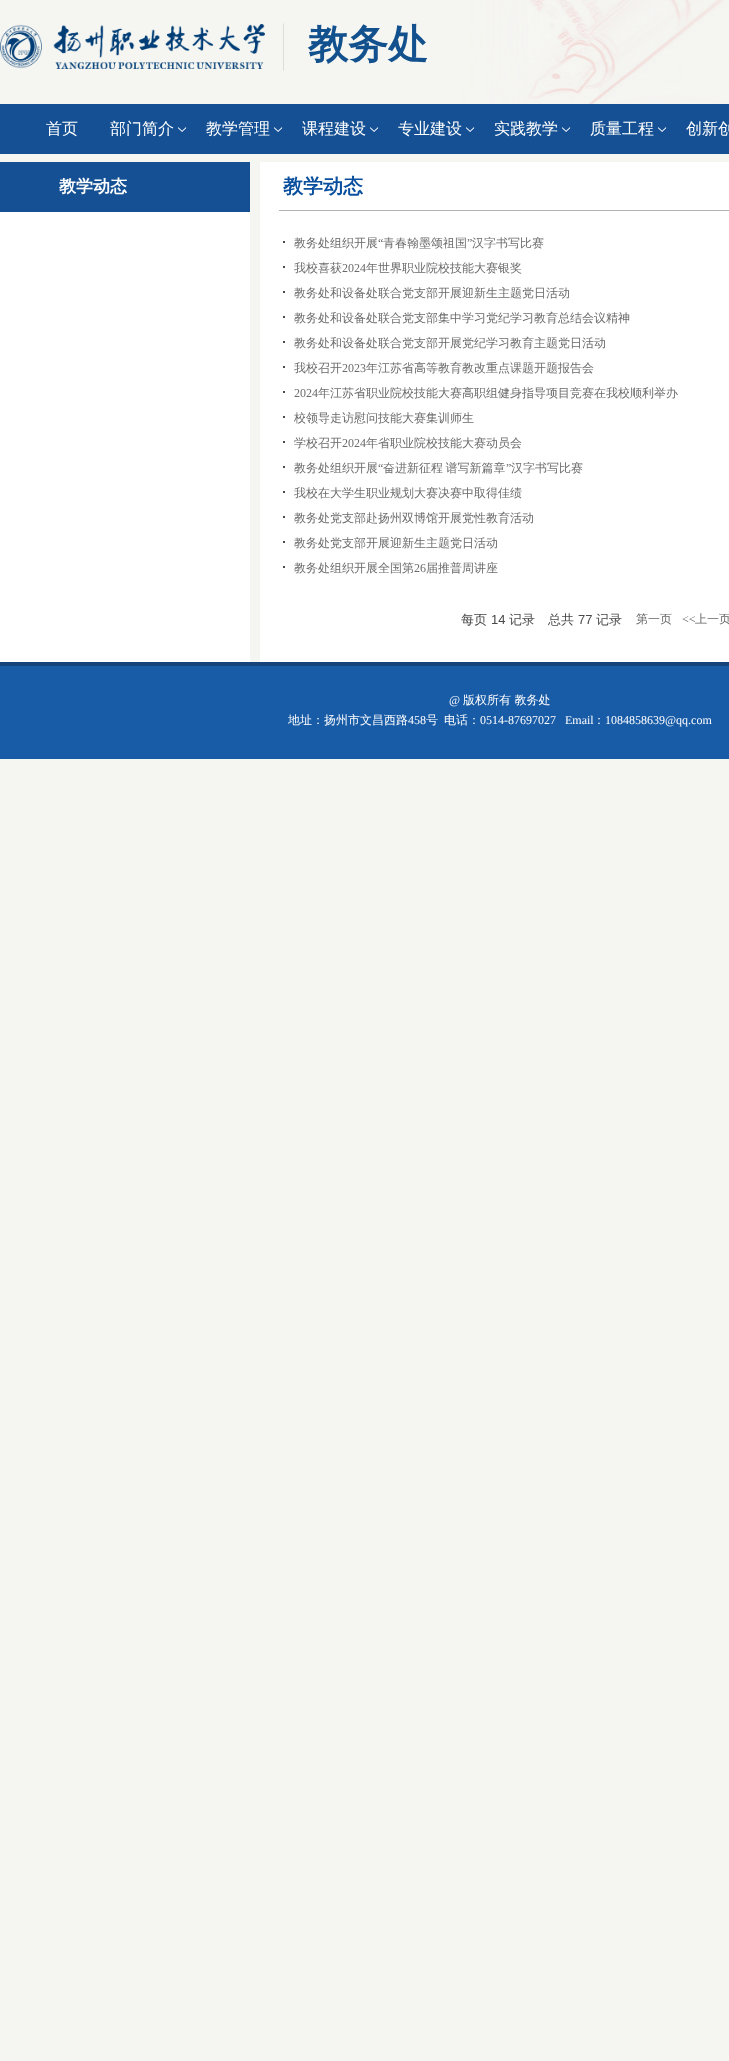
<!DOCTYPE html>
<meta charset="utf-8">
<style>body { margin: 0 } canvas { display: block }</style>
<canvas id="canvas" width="729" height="2061"></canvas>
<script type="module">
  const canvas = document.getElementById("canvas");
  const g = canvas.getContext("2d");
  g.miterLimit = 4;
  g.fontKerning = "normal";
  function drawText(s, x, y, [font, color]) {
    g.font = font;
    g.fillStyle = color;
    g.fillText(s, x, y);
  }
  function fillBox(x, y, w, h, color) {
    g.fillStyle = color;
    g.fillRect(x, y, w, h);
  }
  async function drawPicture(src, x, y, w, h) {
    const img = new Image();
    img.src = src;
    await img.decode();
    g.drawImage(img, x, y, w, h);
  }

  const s1 = ["bold 40px WenQuanYi Zen Hei", "#12518D"];
  const s2 = ["500 16px WenQuanYi Zen Hei", "#FFFFFF"];
  const s3 = ["bold 17px WenQuanYi Zen Hei", "#FFFFFF"];
  const s4 = ["bold 20px WenQuanYi Zen Hei", "#094F9D"];
  const s5 = ["500 12px WenQuanYi Zen Hei", "#6B6B6D"];
  const s6 = ["12px Liberation Serif", "#6B6B6D"];
  const s7 = ["500 13px WenQuanYi Zen Hei", "#494949"];
  const s8 = ["13px Liberation Sans", "#494949"];
  const s9 = ["500 12px WenQuanYi Zen Hei", "#666666"];
  const s10 = ["12px Liberation Serif", "#666666"];
  const s11 = ["12px Liberation Serif", "#FFFFFF"];
  const s12 = ["500 12px WenQuanYi Zen Hei", "#FFFFFF"];

  fillBox(0, 0, 729, 2061, "#F5F5F1");
  await drawPicture("pic1.png", 423, 0, 306, 104);
  await drawPicture("pic2.png", 283, 23, 1, 48);
  await drawPicture("pic3.png", 0, 24, 265, 45);
  drawText("教务处", 308, 58, s1);
  fillBox(0, 104, 729, 50, "#145093");
  drawText("首页", 46, 134, s2);
  await drawPicture("pic4.png", 178, 127, 9, 5);
  drawText("部门简介", 110, 134, s2);
  await drawPicture("pic4.png", 274, 127, 9, 5);
  drawText("教学管理", 206, 134, s2);
  await drawPicture("pic4.png", 370, 127, 9, 5);
  drawText("课程建设", 302, 134, s2);
  await drawPicture("pic4.png", 466, 127, 9, 5);
  drawText("专业建设", 398, 134, s2);
  await drawPicture("pic4.png", 562, 127, 9, 5);
  drawText("实践教学", 494, 134, s2);
  await drawPicture("pic4.png", 658, 127, 9, 5);
  drawText("质量工程", 590, 134, s2);
  drawText("创新创", 686, 134, s2);
  fillBox(0, 212, 250, 450, "#FFFFFF");
  fillBox(0, 162, 250, 50, "#145093");
  drawText("教学动态", 59, 192, s3);
  fillBox(260, 162, 469, 500, "#FFFFFF");
  fillBox(279, 210, 450, 1, "#B2B2B2");
  drawText("教学动态", 283, 193, s4);
  fillBox(283, 241, 2, 2, "#4C4C4C");
  drawText("教务处组织开展", 294, 247, s5);
  drawText("“", 378, 247, s6);
  drawText("青春翰墨颂祖国", 383, 247, s5);
  drawText("”", 467, 247, s6);
  drawText("汉字书写比赛", 472, 247, s5);
  fillBox(283, 266, 2, 2, "#4C4C4C");
  drawText("我校喜获", 294, 272, s5);
  drawText("2024", 342, 272, s6);
  drawText("年世界职业院校技能大赛银奖", 366, 272, s5);
  fillBox(283, 291, 2, 2, "#4C4C4C");
  drawText("教务处和设备处联合党支部开展迎新生主题党日活动", 294, 297, s5);
  fillBox(283, 316, 2, 2, "#4C4C4C");
  drawText("教务处和设备处联合党支部集中学习党纪学习教育总结会议精神", 294, 322, s5);
  fillBox(283, 341, 2, 2, "#4C4C4C");
  drawText("教务处和设备处联合党支部开展党纪学习教育主题党日活动", 294, 347, s5);
  fillBox(283, 366, 2, 2, "#4C4C4C");
  drawText("我校召开", 294, 372, s5);
  drawText("2023", 342, 372, s6);
  drawText("年江苏省高等教育教改重点课题开题报告会", 366, 372, s5);
  fillBox(283, 391, 2, 2, "#4C4C4C");
  drawText("2024", 294, 397, s6);
  drawText("年江苏省职业院校技能大赛高职组健身指导项目竞赛在我校顺利举办", 318, 397, s5);
  fillBox(283, 416, 2, 2, "#4C4C4C");
  drawText("校领导走访慰问技能大赛集训师生", 294, 422, s5);
  fillBox(283, 441, 2, 2, "#4C4C4C");
  drawText("学校召开", 294, 447, s5);
  drawText("2024", 342, 447, s6);
  drawText("年省职业院校技能大赛动员会", 366, 447, s5);
  fillBox(283, 466, 2, 2, "#4C4C4C");
  drawText("教务处组织开展", 294, 472, s5);
  drawText("“", 378, 472, s6);
  g.wordSpacing = "-1px";
  drawText("奋进新征程 谱写新篇章", 383, 472, s5);
  g.wordSpacing = "0px";
  drawText("”", 506, 472, s6);
  drawText("汉字书写比赛", 511, 472, s5);
  fillBox(283, 491, 2, 2, "#4C4C4C");
  drawText("我校在大学生职业规划大赛决赛中取得佳绩", 294, 497, s5);
  fillBox(283, 516, 2, 2, "#4C4C4C");
  drawText("教务处党支部赴扬州双博馆开展党性教育活动", 294, 522, s5);
  fillBox(283, 541, 2, 2, "#4C4C4C");
  drawText("教务处党支部开展迎新生主题党日活动", 294, 547, s5);
  fillBox(283, 566, 2, 2, "#4C4C4C");
  drawText("教务处组织开展全国第", 294, 572, s5);
  drawText("26", 414, 572, s6);
  drawText("届推普周讲座", 426, 572, s5);
  drawText("每页", 461, 624, s7);
  drawText("14", 491, 624, s8);
  drawText("记录", 509, 624, s7);
  drawText("总共", 548, 624, s7);
  drawText("77", 578, 624, s8);
  drawText("记录", 596, 624, s7);
  drawText("第一页", 636, 623, s9);
  drawText("<<", 682, 623, s10);
  drawText("上一页", 695, 623, s9);
  fillBox(0, 666, 729, 93, "#185BA7");
  fillBox(0, 662, 729, 4, "#15437C");
  drawText("@", 449, 704, s11);
  drawText("版权所有 教务处", 463, 704, s12);
  drawText("地址：扬州市文昌西路", 288, 724, s12);
  drawText("458", 408, 724, s11);
  drawText("号", 426, 724, s12);
  drawText("电话：", 444, 724, s12);
  drawText("0514-87697027", 480, 724, s11);
  drawText("Email", 565, 724, s11);
  drawText("：", 593, 724, s12);
  drawText("1084858639@qq.com", 605, 724, s11);
</script>
